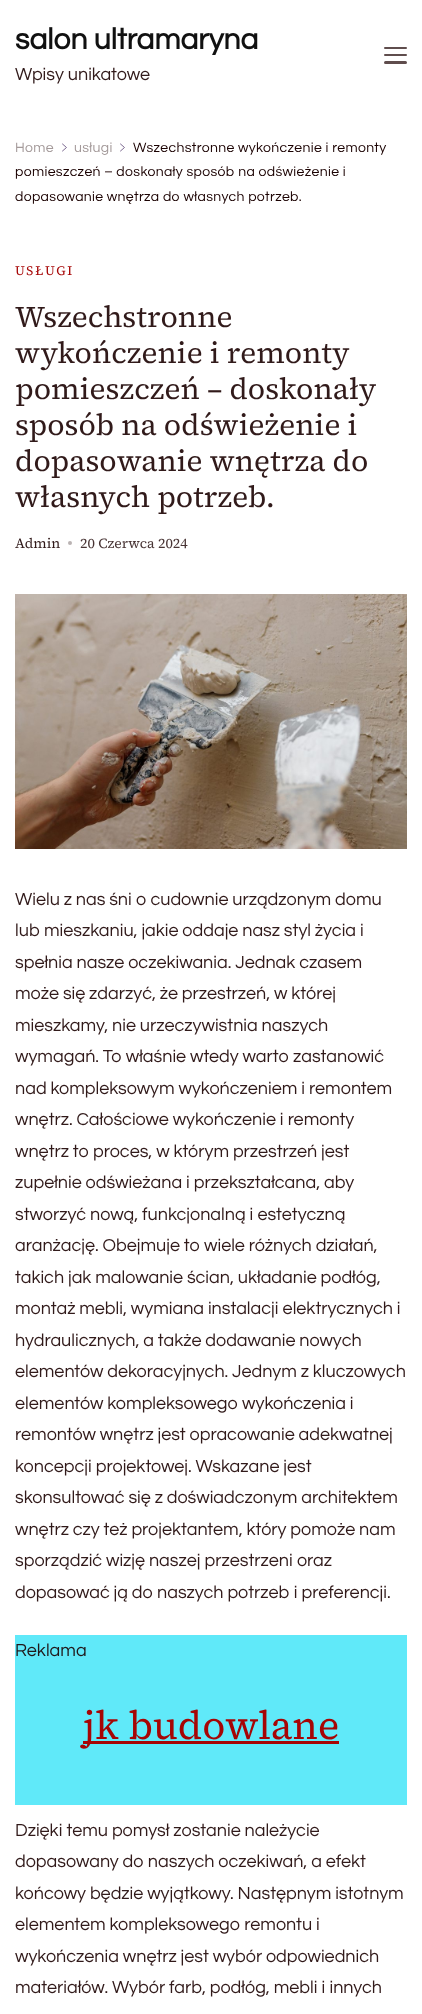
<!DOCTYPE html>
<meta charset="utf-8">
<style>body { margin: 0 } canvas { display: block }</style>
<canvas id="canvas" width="422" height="2014"></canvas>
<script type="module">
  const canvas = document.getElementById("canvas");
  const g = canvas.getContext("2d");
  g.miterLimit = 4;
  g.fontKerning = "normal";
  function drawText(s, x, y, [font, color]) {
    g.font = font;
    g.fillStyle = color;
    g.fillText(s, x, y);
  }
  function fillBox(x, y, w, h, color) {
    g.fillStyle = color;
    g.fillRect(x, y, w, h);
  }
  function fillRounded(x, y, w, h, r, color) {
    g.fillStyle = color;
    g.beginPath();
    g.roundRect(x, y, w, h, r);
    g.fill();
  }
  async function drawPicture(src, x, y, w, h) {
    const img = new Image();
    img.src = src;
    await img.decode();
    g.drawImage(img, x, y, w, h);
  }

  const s1 = ["bold 30px Questrial", "#111111"];
  const s2 = ["18px Questrial", "#311A1A"];
  const s3 = ["14px Questrial", "#1A0101"];
  const s4 = ["14px Questrial", "#A39999"];
  const s5 = ["13px 'Source Serif 4'", "#A60505"];
  const s6 = ["30px 'Source Serif 4'", "#311A1A"];
  const s7 = ["14px 'Source Serif 4'", "#311A1A"];
  const s8 = ["14px 'Source Serif 4'", "#483434"];
  const s9 = ["18px Questrial", "#21181A"];
  const s10 = ["40px 'Source Serif 4'", "#A60505"];

  fillBox(0, 0, 422, 2014, "#FFFFFF");
  drawText("salon ultramaryna", 15, 49, s1);
  drawText("Wpisy unikatowe", 15, 80, s2);
  fillRounded(384, 47, 23, 2, 1, "#5F4D4D");
  fillRounded(384, 54, 23, 2, 1, "#5F4D4D");
  fillRounded(384, 61, 23, 3, 1.5, "#5F4D4D");
  g.beginPath();
  g.moveTo(120.5, 144);
  g.lineTo(124.5, 147.5);
  g.lineTo(120.5, 151);
  g.strokeStyle = "#7D6A91";
  g.lineCap = "round";
  g.stroke();
  g.letterSpacing = "0.35px";
  drawText("Wszechstronne wykończenie i remonty", 133, 152, s3);
  drawText("pomieszczeń – doskonały sposób na odświeżenie i", 15, 176, s3);
  drawText("dopasowanie wnętrza do własnych potrzeb.", 15, 201, s3);
  drawText("Home", 15, 152, s4);
  g.beginPath();
  g.moveTo(62.5, 144);
  g.lineTo(66.5, 147.5);
  g.lineTo(62.5, 151);
  g.stroke();
  drawText("usługi", 74, 152, s4);
  g.letterSpacing = "1.75px";
  drawText("USŁUGI", 15, 275, s5);
  g.letterSpacing = "0px";
  drawText("Wszechstronne", 15, 327, s6);
  drawText("wykończenie i remonty", 15, 363, s6);
  drawText("pomieszczeń – doskonały", 15, 399, s6);
  drawText("sposób na odświeżenie i", 15, 435, s6);
  drawText("dopasowanie wnętrza do", 15, 471, s6);
  drawText("własnych potrzeb.", 15, 507, s6);
  drawText("Admin", 15, 548, s7);
  g.fillStyle = "#BAB3B3";
  g.beginPath();
  g.arc(70, 543, 2, 0, Math.PI * 2);
  g.fill();
  drawText("20 Czerwca 2024", 80, 548, s8);
  await drawPicture("pic1.png", 15, 594, 392, 255);
  drawText("Wielu z nas śni o cudownie urządzonym domu", 15, 905, s2);
  drawText("lub mieszkaniu, jakie oddaje nasz styl życia i", 15, 936, s2);
  drawText("spełnia nasze oczekiwania. Jednak czasem", 15, 968, s2);
  drawText("może się zdarzyć, że przestrzeń, w której", 15, 999, s2);
  drawText("mieszkamy, nie urzeczywistnia naszych", 15, 1031, s2);
  drawText("wymagań. To właśnie wtedy warto zastanowić", 15, 1062, s2);
  drawText("nad kompleksowym wykończeniem i remontem", 15, 1094, s2);
  drawText("wnętrz. Całościowe wykończenie i remonty", 15, 1125, s2);
  drawText("wnętrz to proces, w którym przestrzeń jest", 15, 1157, s2);
  drawText("zupełnie odświeżana i przekształcana, aby", 15, 1188, s2);
  drawText("stworzyć nową, funkcjonalną i estetyczną", 15, 1220, s2);
  drawText("aranżację. Obejmuje to wiele różnych działań,", 15, 1251, s2);
  drawText("takich jak malowanie ścian, układanie podłóg,", 15, 1283, s2);
  drawText("montaż mebli, wymiana instalacji elektrycznych i", 15, 1314, s2);
  drawText("hydraulicznych, a także dodawanie nowych", 15, 1346, s2);
  drawText("elementów dekoracyjnych. Jednym z kluczowych", 15, 1377, s2);
  drawText("elementów kompleksowego wykończenia i", 15, 1409, s2);
  drawText("remontów wnętrz jest opracowanie adekwatnej", 15, 1440, s2);
  drawText("koncepcji projektowej. Wskazane jest", 15, 1472, s2);
  drawText("skonsultować się z doświadczonym architektem", 15, 1503, s2);
  drawText("wnętrz czy też projektantem, który pomoże nam", 15, 1535, s2);
  drawText("sporządzić wizję naszej przestrzeni oraz", 15, 1566, s2);
  drawText("dopasować ją do naszych potrzeb i preferencji.", 15, 1598, s2);
  fillBox(15, 1635, 392, 170, "#60E9F9");
  drawText("Reklama", 15, 1656, s9);
  fillBox(83, 1741, 256, 3, "#A60505");
  drawText("jk budowlane", 83, 1739, s10);
  drawText("Dzięki temu pomysł zostanie należycie", 15, 1836, s2);
  drawText("dopasowany do naszych oczekiwań, a efekt", 15, 1867, s2);
  drawText("końcowy będzie wyjątkowy. Następnym istotnym", 15, 1899, s2);
  drawText("elementem kompleksowego remontu i", 15, 1930, s2);
  drawText("wykończenia wnętrz jest wybór odpowiednich", 15, 1962, s2);
  drawText("materiałów. Wybór farb, podłóg, mebli i innych", 15, 1993, s2);
</script>
